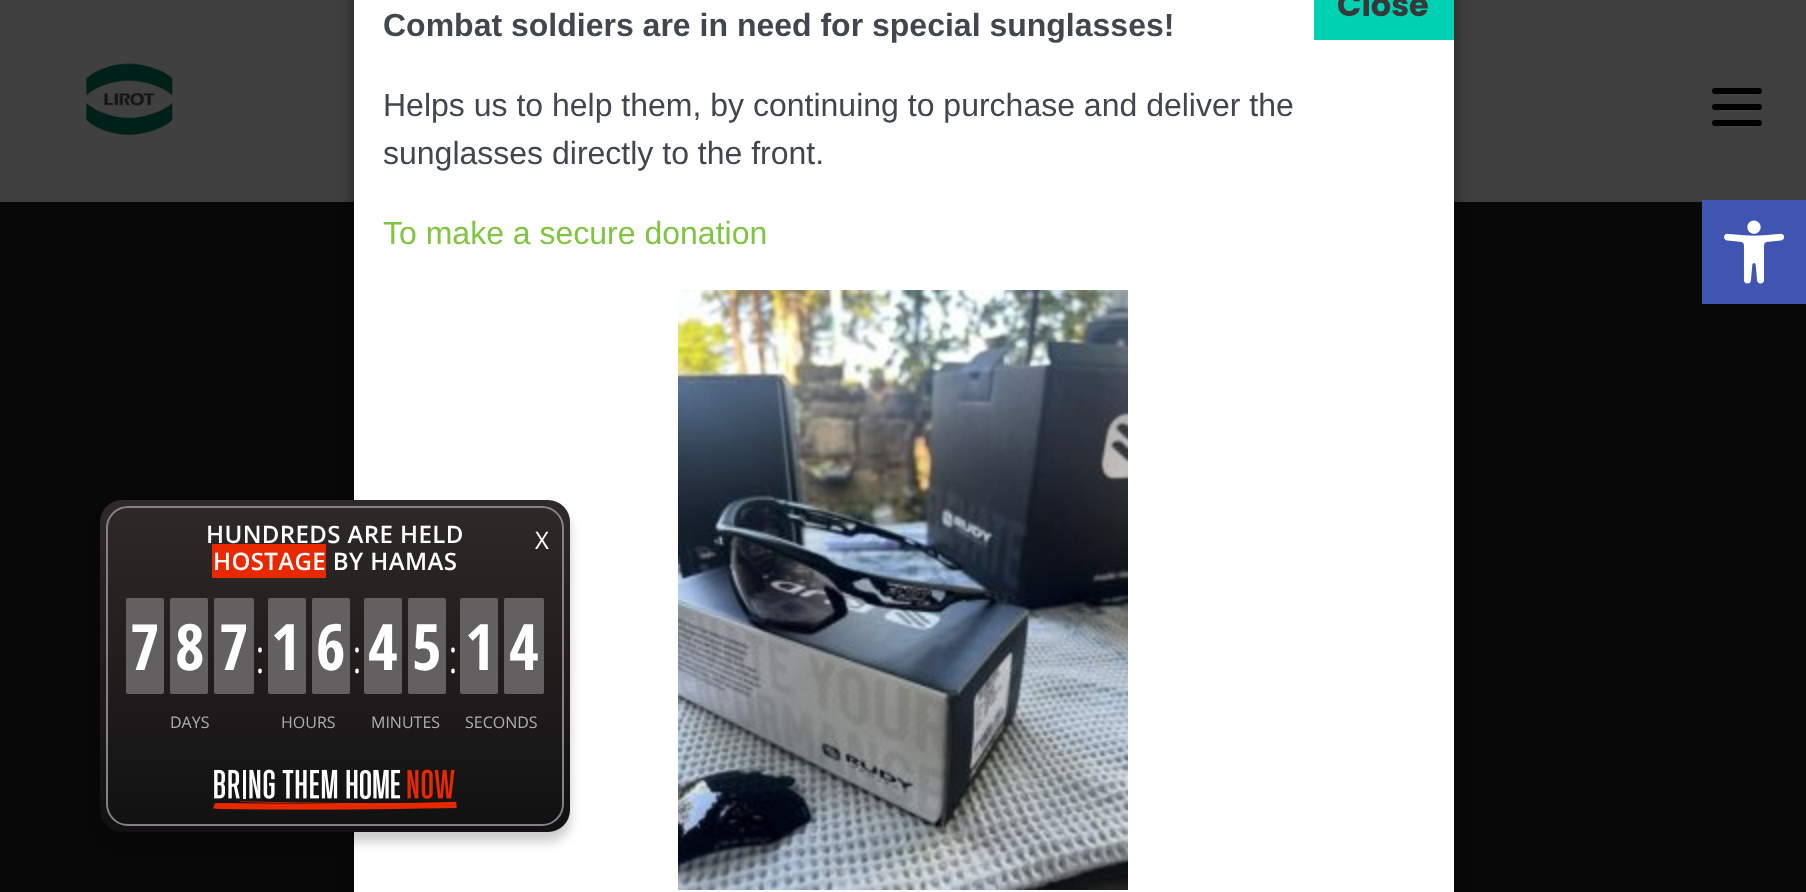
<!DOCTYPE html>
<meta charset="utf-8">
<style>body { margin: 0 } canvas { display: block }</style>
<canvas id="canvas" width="1806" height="892"></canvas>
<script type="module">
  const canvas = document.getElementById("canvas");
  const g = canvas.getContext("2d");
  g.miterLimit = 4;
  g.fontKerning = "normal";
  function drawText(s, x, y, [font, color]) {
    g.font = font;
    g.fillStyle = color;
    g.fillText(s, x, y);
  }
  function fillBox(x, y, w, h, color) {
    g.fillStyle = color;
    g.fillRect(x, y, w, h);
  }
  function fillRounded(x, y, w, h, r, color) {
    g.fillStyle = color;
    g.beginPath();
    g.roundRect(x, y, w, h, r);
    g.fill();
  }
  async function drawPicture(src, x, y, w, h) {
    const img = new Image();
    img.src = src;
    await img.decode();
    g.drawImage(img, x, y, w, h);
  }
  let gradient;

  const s1 = ["bold 32px Poppins", "#383838"];
  const s2 = ["bold 32px Liberation Sans", "#42464E"];
  const s3 = ["32px Liberation Sans", "#42464E"];
  const s4 = ["32px Liberation Sans", "#7FC540"];
  const s5 = ["600 24px Open Sans", "#FFFFFF"];
  const s6 = ["24px Open Sans", "#FFFFFF"];
  const s7 = ["bold 64px Open Sans Condensed", "#FFFFFF"];
  const s8 = ["16px Open Sans", "#AFAFAF"];
  const s9 = ["300 48px Open Sans Condensed", "#FFFFFF"];

  fillBox(0, 0, 1806, 892, "#404040");
  fillBox(0, 200, 1702, 2, "#3D3D3D");
  fillBox(0, 202, 1806, 690, "#080808");
  g.fillStyle = "rgba(0, 0, 0, 0.5)";
  g.filter = "blur(8px)";
  g.beginPath();
  g.rect(354, -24, 1100, 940);
  g.fill();
  g.filter = "none";
  fillBox(354, 0, 1100, 892, "#FFFFFF");
  fillBox(1314, 0, 140, 40, "#00D1B2");
  drawText("Close", 1337, 16, s1);
  drawText("Combat soldiers are in need for special sunglasses!", 383, 36, s2);
  drawText("Helps us to help them, by continuing to purchase and deliver the", 383, 116, s3);
  drawText("sunglasses directly to the front.", 383, 164, s3);
  drawText("To make a secure donation", 383, 244, s4);
  await drawPicture("pic1.png", 678, 290, 450, 600);
  await drawPicture("pic2.png", 85, 63, 88, 72);
  fillRounded(1712, 104, 50, 6, 3, "#000000");
  fillRounded(1712, 88, 50, 6, 3, "#000000");
  fillRounded(1712, 120, 50, 6, 3, "#000000");
  fillBox(1702, 200, 104, 104, "#4054B2");
  await drawPicture("pic3.png", 1724, 220, 61, 64);
  g.fillStyle = "rgba(0, 0, 0, 0.2)";
  g.filter = "blur(5.5px)";
  g.beginPath();
  g.roundRect(100, 510, 470, 332, 22);
  g.fill();
  g.filter = "none";
  gradient = g.createLinearGradient(335, 500, 335, 832);
  gradient.addColorStop(0, "#2F2929");
  gradient.addColorStop(1, "#111111");
  g.fillStyle = gradient;
  g.beginPath();
  g.roundRect(100, 500, 470, 332, 22);
  g.fill();
  g.beginPath();
  g.roundRect(107, 507, 456, 318, 21);
  g.strokeStyle = "#867F8A";
  g.lineWidth = 2;
  g.stroke();
  g.letterSpacing = "0.4px";
  drawText("HUNDREDS ARE HELD", 206, 543, s5);
  fillBox(212, 544, 114, 34, "#E82900");
  drawText("HOSTAGE BY HAMAS", 213, 570, s5);
  g.letterSpacing = "0px";
  drawText("X", 535, 549, s6);
  fillRounded(126, 598, 38, 96, 2, "#626060");
  drawText("7", 130, 670, s7);
  fillRounded(170, 598, 38, 96, 2, "#626060");
  drawText("8", 175, 670, s7);
  fillRounded(214, 598, 40, 96, 2, "#626060");
  drawText("7", 219, 670, s7);
  drawText("DAYS", 170, 728, s8);
  drawText(":", 255, 673, s9);
  fillRounded(268, 598, 38, 96, 2, "#626060");
  drawText("1", 271, 670, s7);
  fillRounded(312, 598, 38, 96, 2, "#626060");
  drawText("6", 316, 670, s7);
  drawText("HOURS", 281, 728, s8);
  drawText(":", 352, 673, s9);
  fillRounded(364, 598, 38, 96, 2, "#626060");
  drawText("4", 368, 670, s7);
  fillRounded(408, 598, 38, 96, 2, "#626060");
  drawText("5", 412, 670, s7);
  drawText("MINUTES", 371, 728, s8);
  drawText(":", 448, 673, s9);
  fillRounded(460, 598, 38, 96, 2, "#626060");
  drawText("1", 465, 670, s7);
  fillRounded(504, 598, 40, 96, 2, "#626060");
  drawText("4", 509, 670, s7);
  drawText("SECONDS", 465, 728, s8);
  await drawPicture("pic4.png", 213, 769, 244, 41);
</script>
